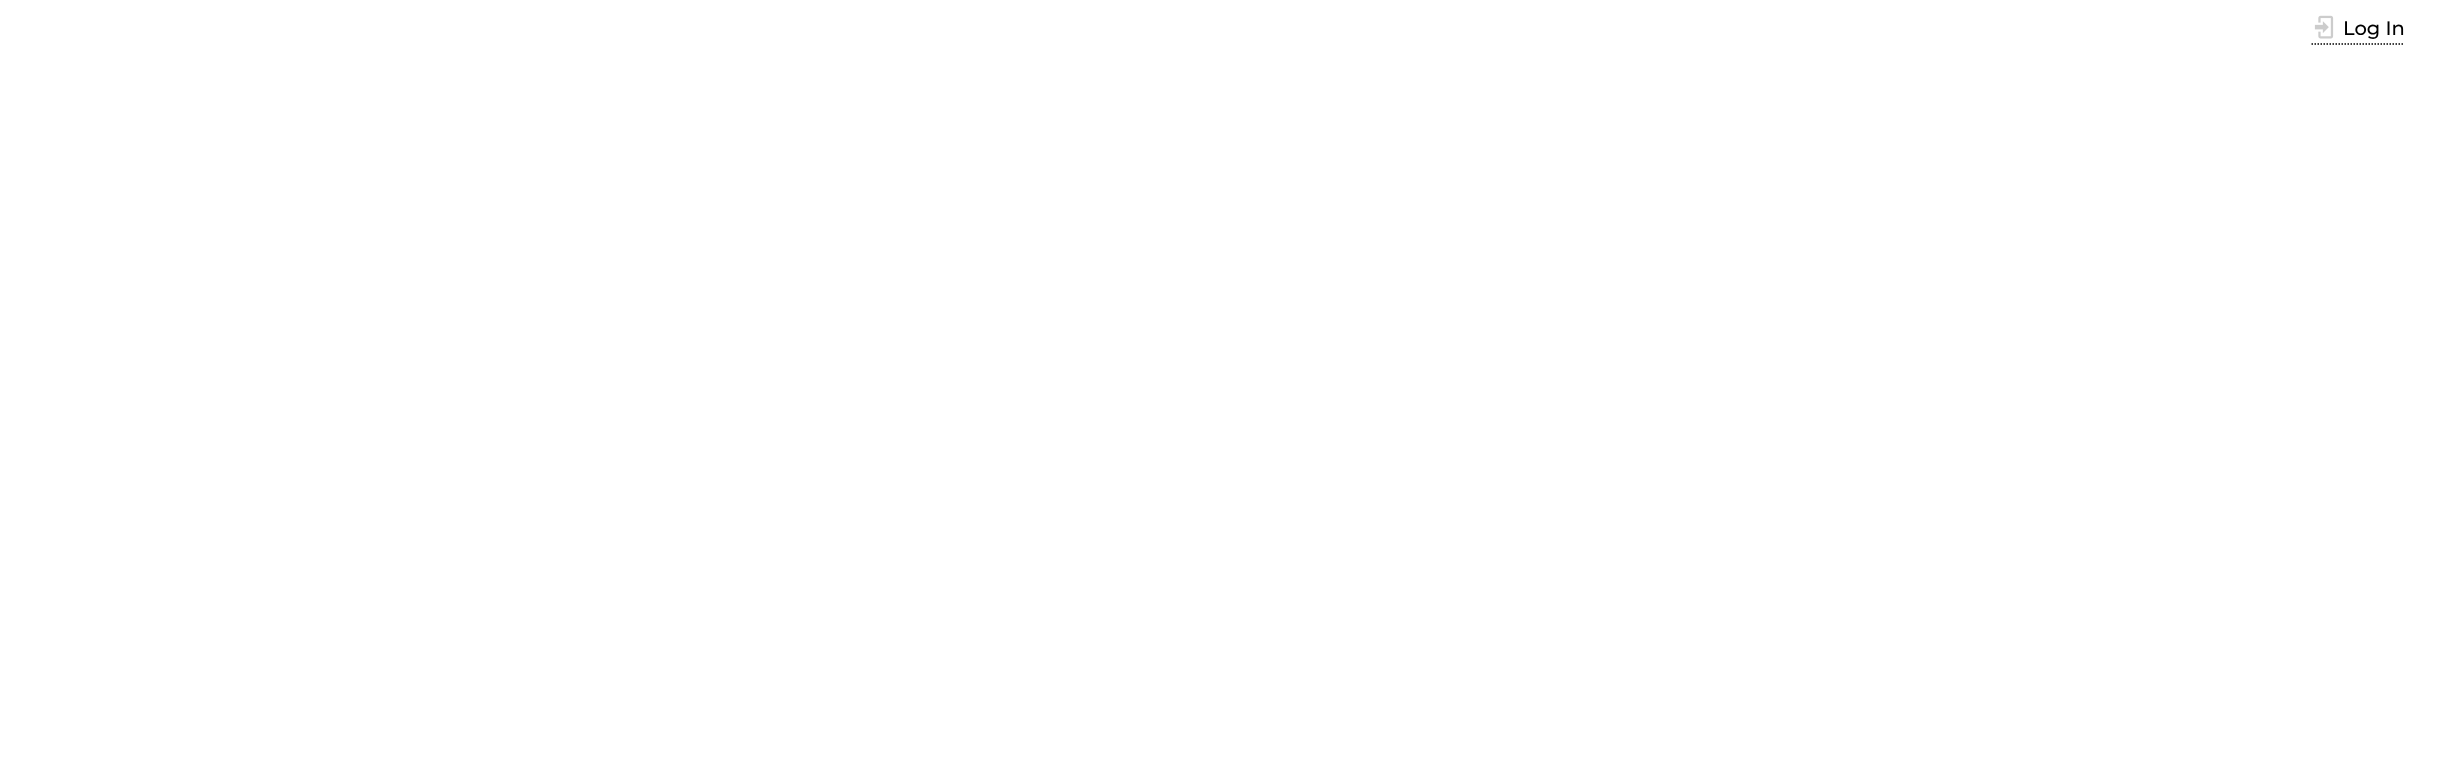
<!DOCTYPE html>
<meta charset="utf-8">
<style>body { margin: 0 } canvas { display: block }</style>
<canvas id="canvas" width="2464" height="766"></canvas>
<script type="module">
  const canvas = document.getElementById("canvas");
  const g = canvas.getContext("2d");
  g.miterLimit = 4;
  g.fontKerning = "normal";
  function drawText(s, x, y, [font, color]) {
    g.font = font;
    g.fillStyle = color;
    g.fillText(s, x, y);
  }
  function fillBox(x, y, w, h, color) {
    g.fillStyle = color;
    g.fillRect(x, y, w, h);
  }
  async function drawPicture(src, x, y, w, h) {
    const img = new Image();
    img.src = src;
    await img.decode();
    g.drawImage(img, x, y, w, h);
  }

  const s1 = ["100 19.5px Montserrat", "#000000"];

  fillBox(0, 0, 2464, 766, "#FFFFFF");
  g.beginPath();
  g.moveTo(2311.5, 44);
  g.lineTo(2404.5, 44);
  g.strokeStyle = "#000000";
  g.lineWidth = 1.5;
  g.setLineDash([1.5, 1.5]);
  g.stroke();
  await drawPicture("pic1.png", 2314, 15, 20, 24);
  drawText("Log In", 2343, 35, s1);
</script>
